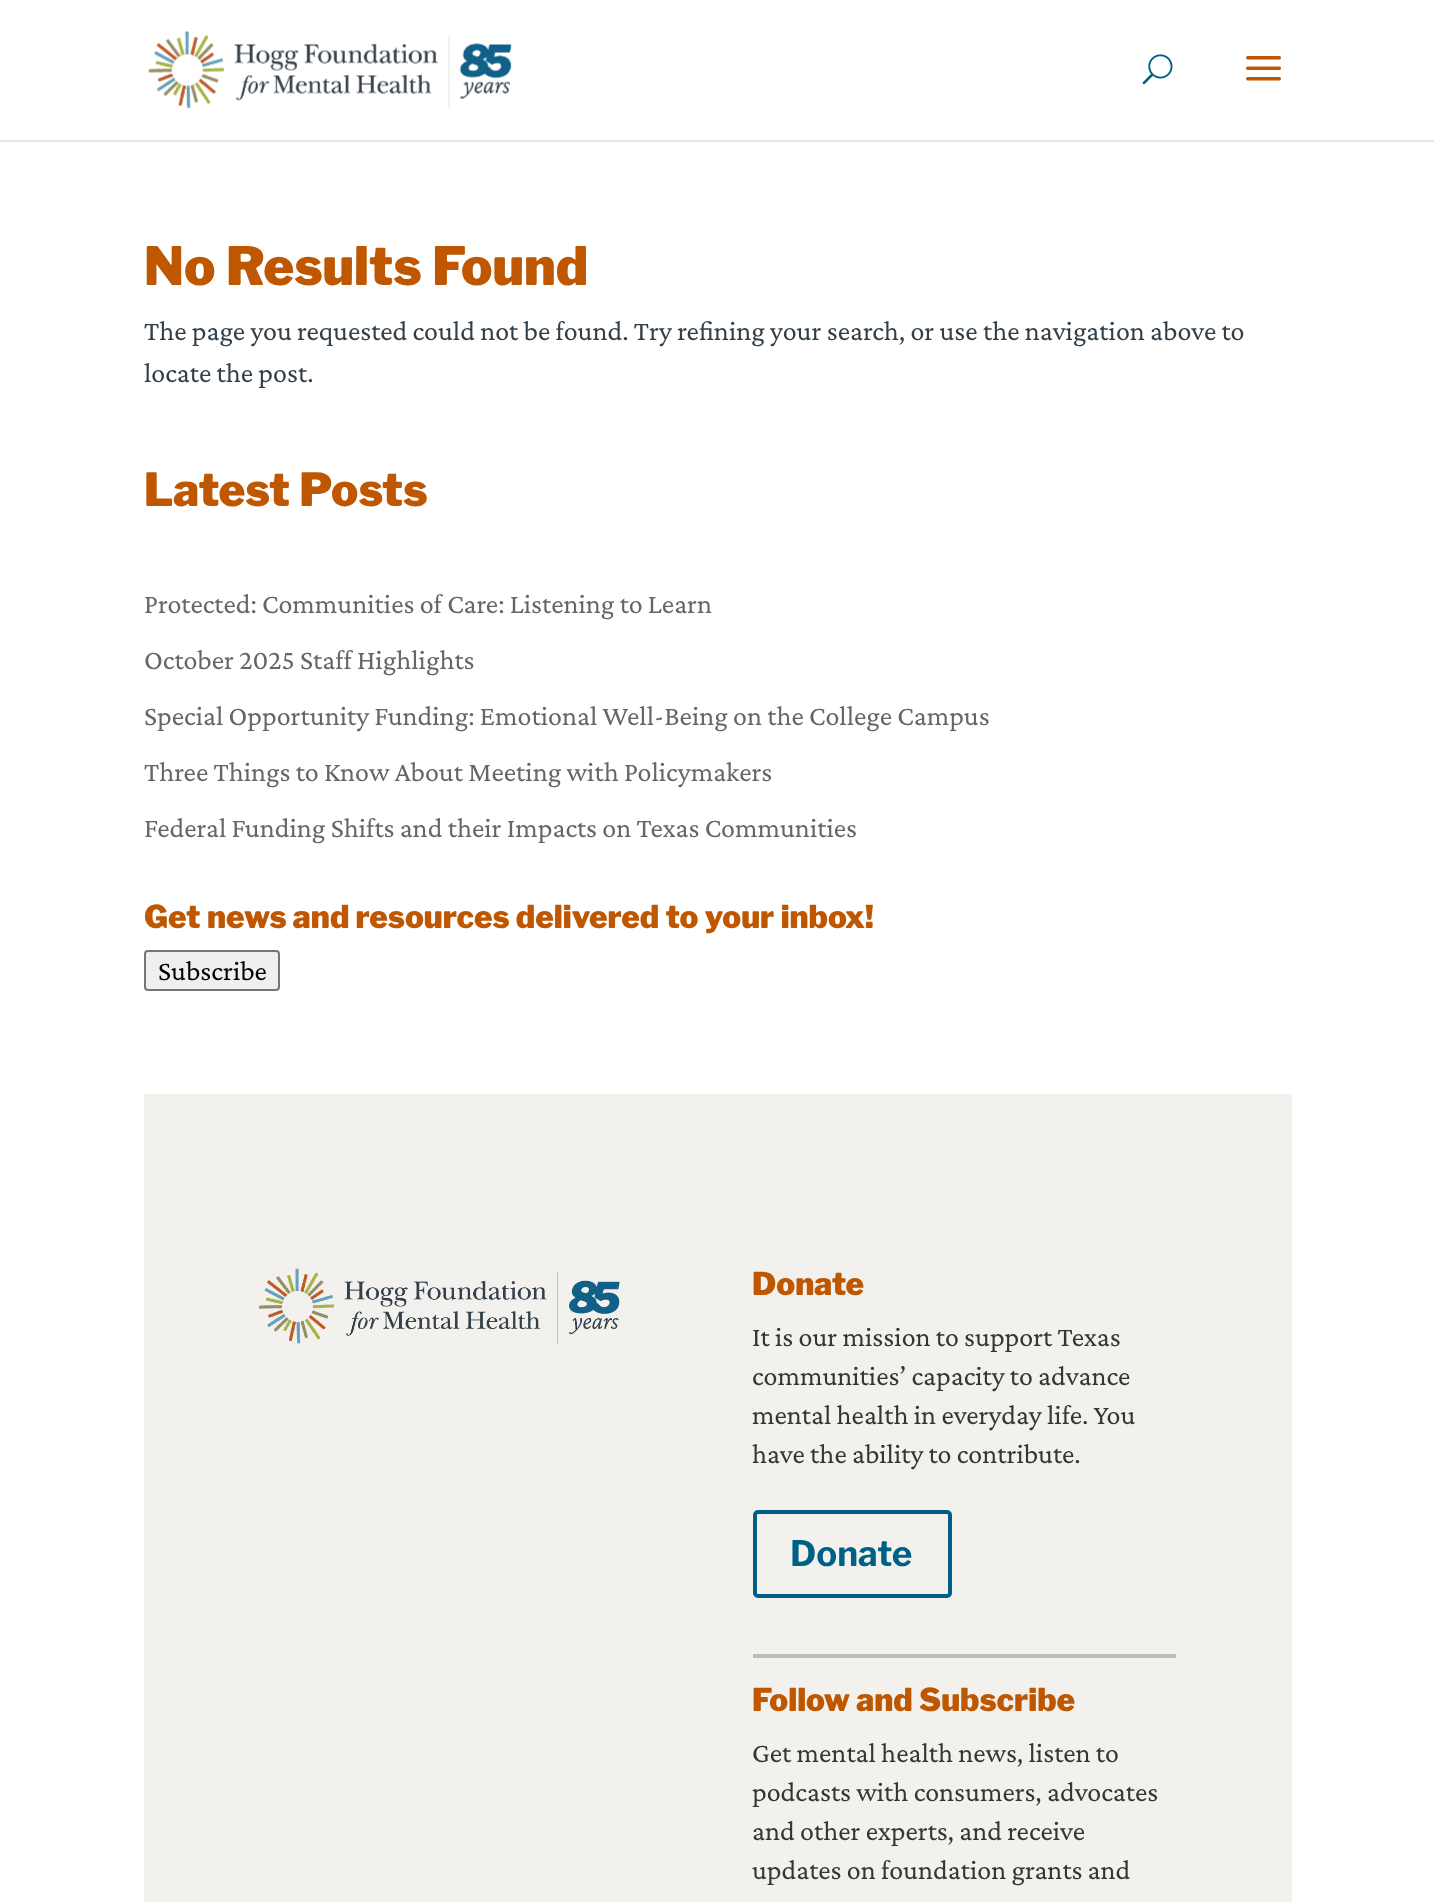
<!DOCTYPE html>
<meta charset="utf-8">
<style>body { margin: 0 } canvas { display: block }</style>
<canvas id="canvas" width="1434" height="1902"></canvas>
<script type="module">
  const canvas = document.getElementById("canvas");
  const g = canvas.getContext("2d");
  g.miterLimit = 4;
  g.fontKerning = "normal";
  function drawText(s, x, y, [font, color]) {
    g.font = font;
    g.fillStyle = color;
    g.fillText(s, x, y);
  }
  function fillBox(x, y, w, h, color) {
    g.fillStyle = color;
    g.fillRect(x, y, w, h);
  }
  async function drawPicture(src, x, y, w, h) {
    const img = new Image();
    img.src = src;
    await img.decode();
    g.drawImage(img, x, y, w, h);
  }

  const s1 = ["900 52.5px Libre Franklin", "#BF5700"];
  const s2 = ["28px Crimson Pro", "#333F48"];
  const s3 = ["900 45.5px Libre Franklin", "#BF5700"];
  const s4 = ["28px Crimson Pro", "#666666"];
  const s5 = ["900 31.5px Libre Franklin", "#BF5700"];
  const s6 = ["28px Crimson Pro", "#000000"];
  const s7 = ["28px Crimson Pro", "#353535"];
  const s8 = ["bold 35px Libre Franklin", "#005F86"];

  fillBox(0, 0, 1434, 1902, "#FFFFFF");
  fillBox(0, 140, 1434, 2, "#E6E6E6");
  await drawPicture("pic1.png", 148, 31, 364, 78);
  await drawPicture("pic2.png", 1142, 54, 31, 31);
  await drawPicture("pic3.png", 1246, 56, 35, 25);
  drawText("No Results Found", 144, 285, s1);
  drawText("The page you requested could not be found. Try refining your search, or use the navigation above to", 144, 340, s2);
  drawText("locate the post.", 144, 382, s2);
  drawText("Latest Posts", 144, 506, s3);
  drawText("Protected: Communities of Care: Listening to Learn", 144, 613, s4);
  drawText("October 2025 Staff Highlights", 144, 669, s4);
  drawText("Special Opportunity Funding: Emotional Well-Being on the College Campus", 144, 725, s4);
  drawText("Three Things to Know About Meeting with Policymakers", 144, 781, s4);
  drawText("Federal Funding Shifts and their Impacts on Texas Communities", 144, 837, s4);
  drawText("Get news and resources delivered to your inbox!", 144, 928, s5);
  g.fillStyle = "#EFEFEF";
  g.beginPath();
  g.roundRect(145, 951, 134, 39, 3);
  g.fill();
  g.strokeStyle = "#767676";
  g.lineWidth = 2;
  g.stroke();
  drawText("Subscribe", 158, 980, s6);
  fillBox(144, 1094, 1148, 808, "#F2F1ED");
  await drawPicture("pic4.png", 259, 1268, 361, 76);
  drawText("Donate", 752, 1295, s5);
  drawText("It is our mission to support Texas", 752, 1346, s7);
  drawText("communities’ capacity to advance", 752, 1385, s7);
  drawText("mental health in everyday life. You", 752, 1424, s7);
  drawText("have the ability to contribute.", 752, 1463, s7);
  g.beginPath();
  g.roundRect(755, 1512, 195, 84, 3);
  g.strokeStyle = "#005F86";
  g.lineWidth = 4;
  g.stroke();
  drawText("Donate", 790, 1566, s8);
  fillBox(753, 1654, 423, 4, "#BCBCBC");
  drawText("Follow and Subscribe", 752, 1711, s5);
  drawText("Get mental health news, listen to", 752, 1762, s7);
  drawText("podcasts with consumers, advocates", 752, 1801, s7);
  drawText("and other experts, and receive", 752, 1840, s7);
  drawText("updates on foundation grants and", 752, 1879, s7);
</script>
